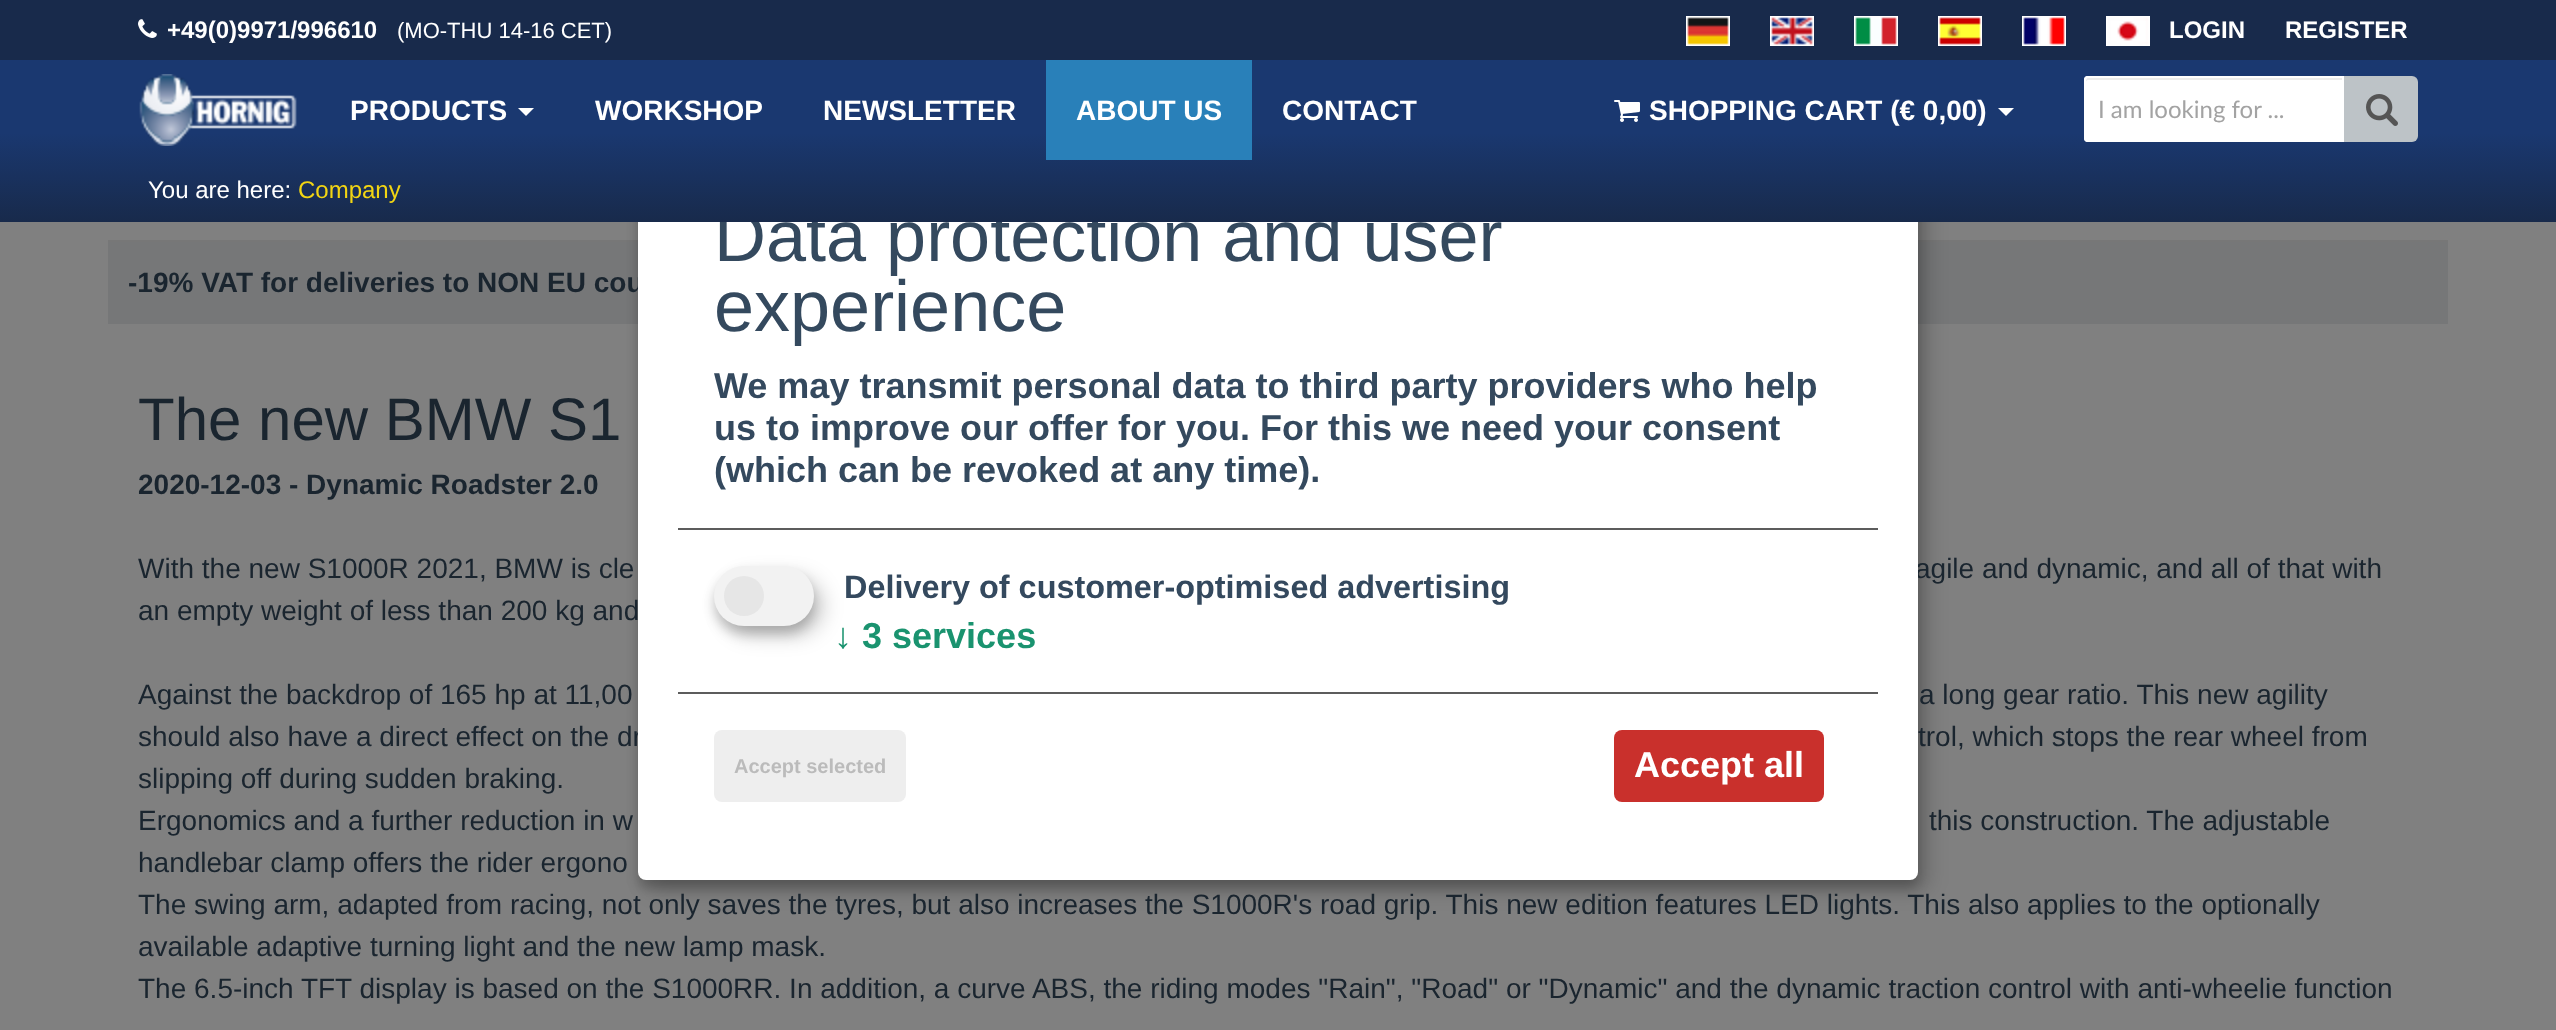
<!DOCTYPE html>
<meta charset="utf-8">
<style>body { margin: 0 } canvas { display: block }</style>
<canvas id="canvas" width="2556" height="1030"></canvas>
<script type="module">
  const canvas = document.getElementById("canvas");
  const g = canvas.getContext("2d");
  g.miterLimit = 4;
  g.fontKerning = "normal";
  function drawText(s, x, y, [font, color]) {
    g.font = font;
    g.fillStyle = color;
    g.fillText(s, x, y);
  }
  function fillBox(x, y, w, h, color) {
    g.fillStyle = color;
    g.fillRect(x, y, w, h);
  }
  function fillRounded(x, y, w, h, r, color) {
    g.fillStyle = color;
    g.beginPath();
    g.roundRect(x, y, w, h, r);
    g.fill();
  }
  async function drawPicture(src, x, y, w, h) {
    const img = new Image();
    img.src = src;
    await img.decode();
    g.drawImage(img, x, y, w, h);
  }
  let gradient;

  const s1 = ["bold 28px Liberation Sans", "#1A252F"];
  const s2 = ["28px Liberation Sans", "#1A252F"];
  const s3 = ["72px Liberation Sans", "#34495E"];
  const s4 = ["bold 24px Liberation Sans", "#FFFFFF"];
  const s5 = ["22px Liberation Sans", "#FFFFFF"];
  const s6 = ["bold 28px Liberation Sans", "#FFFFFF"];
  const s7 = ["24px Lato", "#A3A3A3"];
  const s8 = ["24px Liberation Sans", "#FFFFFF"];
  const s9 = ["24px Liberation Sans", "#F2D513"];
  const s10 = ["bold 36px Liberation Sans", "#34495E"];
  const s11 = ["bold 32.4px Liberation Sans", "#34495E"];
  const s12 = ["bold 36px Liberation Sans", "#1A936F"];
  const s13 = ["bold 20px Liberation Sans", "#BBBBBB"];
  const s14 = ["bold 36px Liberation Sans", "#FFFFFF"];
  const s15 = ["60px Liberation Sans", "#1A252F"];

  fillBox(0, 0, 2556, 1030, "#808080");
  fillBox(108, 242, 2340, 82, "#767778");
  fillBox(108, 240, 2340, 2, "#777777");
  g.fillStyle = "rgba(0, 0, 0, 0.19)";
  g.filter = "blur(10px)";
  g.beginPath();
  g.roundRect(648, 162, 1280, 728, 8);
  g.fill();
  g.filter = "none";
  g.fillStyle = "rgba(0, 0, 0, 0.2)";
  g.filter = "blur(6px)";
  g.beginPath();
  g.roundRect(638, 160, 1280, 728, 8);
  g.fill();
  g.filter = "none";
  drawText("-19% VAT for deliveries to NON EU cou", 128, 292, s1);
  drawText("agile and dynamic, and all of that with", 1915, 578, s2);
  drawText("should also have a direct effect on the dr", 138, 746, s2);
  fillRounded(638, 152, 1280, 728, 8, "#FFFFFF");
  drawText("Data protection and user", 714, 261, s3);
  gradient = g.createLinearGradient(1278, 0, 1278, 222);
  gradient.addColorStop(0.6, "#1A3870");
  gradient.addColorStop(1, "#182A4B");
  g.fillStyle = gradient;
  g.fillRect(0, 60, 2556, 162);
  fillBox(0, 0, 2556, 60, "#182A4B");
  await drawPicture("pic1.png", 138, 19, 19, 19);
  drawText("+49(0)9971/996610", 167, 38, s4);
  drawText("(MO-THU 14-16 CET)", 397, 38, s5);
  await drawPicture("pic2.png", 1686, 16, 44, 30);
  await drawPicture("pic3.png", 1770, 16, 44, 30);
  await drawPicture("pic4.png", 1854, 16, 44, 30);
  await drawPicture("pic5.png", 1938, 16, 44, 30);
  await drawPicture("pic6.png", 2022, 16, 44, 30);
  await drawPicture("pic7.png", 2106, 16, 44, 30);
  drawText("LOGIN", 2169, 38, s4);
  drawText("REGISTER", 2285, 38, s4);
  await drawPicture("pic8.png", 139, 74, 158, 72);
  drawText("PRODUCTS", 350, 120, s6);
  g.beginPath();
  g.moveTo(518, 108);
  g.lineTo(534, 108);
  g.lineTo(526, 116);
  g.closePath();
  g.fill();
  drawText("WORKSHOP", 595, 120, s6);
  drawText("NEWSLETTER", 823, 120, s6);
  fillBox(1046, 60, 206, 100, "#2980B9");
  drawText("ABOUT US", 1076, 120, s6);
  drawText("CONTACT", 1282, 120, s6);
  await drawPicture("pic9.png", 1614, 100, 26, 22);
  drawText("SHOPPING CART (€ 0,00)", 1649, 120, s6);
  g.beginPath();
  g.moveTo(1998, 108);
  g.lineTo(2014, 108);
  g.lineTo(2006, 116);
  g.closePath();
  g.fill();
  g.beginPath();
  g.roundRect(2084, 76, 260, 66, [4, 0, 0, 4]);
  g.fill();
  g.fillStyle = "#ECECEC";
  g.beginPath();
  g.moveTo(2088, 80);
  g.lineTo(2342, 80);
  g.lineTo(2342, 78);
  g.lineTo(2087, 78);
  g.bezierCurveTo(2086, 79, 2086, 81, 2086, 82);
  g.bezierCurveTo(2086, 81, 2087, 80, 2088, 80);
  g.closePath();
  g.fill();
  g.beginPath();
  g.roundRect(2085, 77, 258, 64, [3, 0, 0, 3]);
  g.strokeStyle = "#FFFFFF";
  g.lineWidth = 2;
  g.stroke();
  drawText("I am looking for ...", 2098, 118, s7);
  g.fillStyle = "#BDC3C7";
  g.beginPath();
  g.roundRect(2344, 76, 74, 66, [0, 6, 6, 0]);
  g.fill();
  await drawPicture("pic10.png", 2366, 94, 32, 32);
  drawText("You are here:", 148, 198, s8);
  drawText("Company", 298, 198, s9);
  fillBox(678, 528, 1200, 2, "#5C5C5C");
  drawText("experience", 714, 331, s3);
  drawText("We may transmit personal data to third party providers who help", 714, 398, s10);
  drawText("us to improve our offer for you. For this we need your consent", 714, 440, s10);
  drawText("(which can be revoked at any time).", 714, 482, s10);
  g.fillStyle = "rgba(0, 0, 0, 0.19)";
  g.filter = "blur(10px)";
  g.beginPath();
  g.roundRect(724, 576, 100, 60, 30);
  g.fill();
  g.filter = "none";
  g.fillStyle = "rgba(0, 0, 0, 0.2)";
  g.filter = "blur(6px)";
  g.beginPath();
  g.roundRect(714, 574, 100, 60, 30);
  g.fill();
  g.filter = "none";
  fillRounded(714, 566, 100, 60, 30, "#F2F2F2");
  g.fillStyle = "#E6E6E6";
  g.beginPath();
  g.arc(744, 596, 20, 0, Math.PI * 2);
  g.fill();
  drawText("Delivery of customer-optimised advertising", 844, 598, s11);
  drawText("↓ 3 services", 834, 648, s12);
  fillBox(678, 692, 1200, 2, "#5C5C5C");
  fillRounded(714, 730, 192, 72, 8, "#EEEEEE");
  drawText("Accept selected", 734, 773, s13);
  fillRounded(1614, 730, 210, 72, 8, "#C9302C");
  drawText("Accept all", 1634, 777, s14);
  drawText("The new BMW S1", 138, 440, s15);
  drawText("2020-12-03 - Dynamic Roadster 2.0", 138, 494, s1);
  drawText("With the new S1000R 2021, BMW is cle", 138, 578, s2);
  drawText("an empty weight of less than 200 kg and", 138, 620, s2);
  drawText("Against the backdrop of 165 hp at 11,00", 138, 704, s2);
  drawText("a long gear ratio. This new agility", 1919, 704, s2);
  drawText("trol, which stops the rear wheel from", 1918, 746, s2);
  drawText("slipping off during sudden braking.", 138, 788, s2);
  drawText("Ergonomics and a further reduction in w", 138, 830, s2);
  drawText("this construction. The adjustable", 1929, 830, s2);
  drawText("handlebar clamp offers the rider ergono", 138, 872, s2);
  drawText("The swing arm, adapted from racing, not only saves the tyres, but also increases the S1000R's road grip. This new edition features LED lights. This also applies to the optionally", 138, 914, s2);
  drawText("available adaptive turning light and the new lamp mask.", 138, 956, s2);
  drawText("The 6.5-inch TFT display is based on the S1000RR. In addition, a curve ABS, the riding modes \"Rain\", \"Road\" or \"Dynamic\" and the dynamic traction control with anti-wheelie function", 138, 998, s2);
</script>
